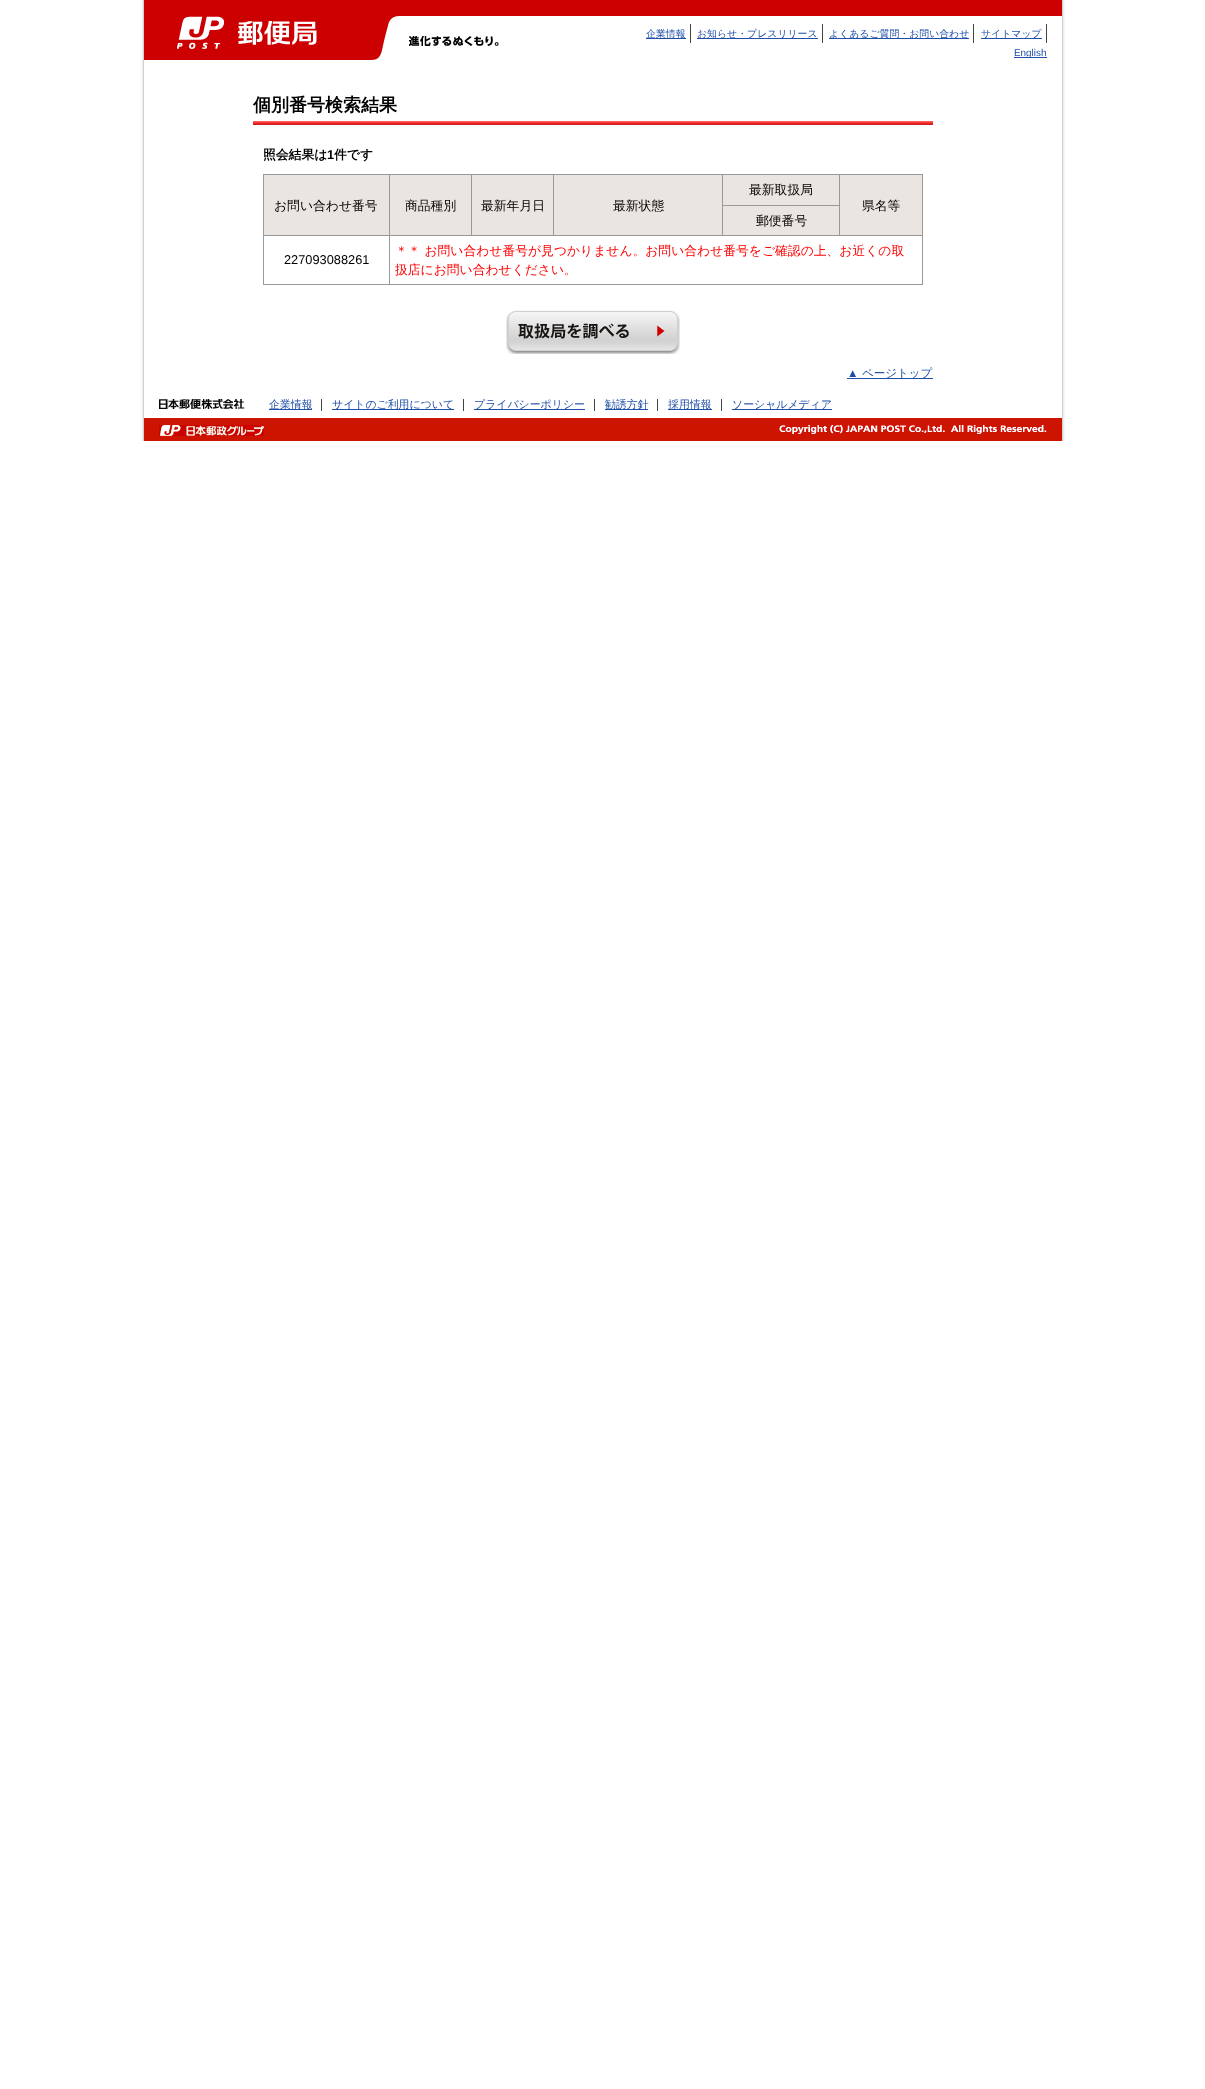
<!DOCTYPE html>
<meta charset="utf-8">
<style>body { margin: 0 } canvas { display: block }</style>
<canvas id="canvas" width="1205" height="2089"></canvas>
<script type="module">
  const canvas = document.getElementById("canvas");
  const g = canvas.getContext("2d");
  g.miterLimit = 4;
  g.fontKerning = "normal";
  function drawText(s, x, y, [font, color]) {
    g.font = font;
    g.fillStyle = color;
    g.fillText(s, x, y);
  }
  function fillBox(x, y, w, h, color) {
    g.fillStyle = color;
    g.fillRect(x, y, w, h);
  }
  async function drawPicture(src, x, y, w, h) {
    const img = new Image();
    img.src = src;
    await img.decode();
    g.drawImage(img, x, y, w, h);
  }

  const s1 = ["500 9.9px WenQuanYi Zen Hei", "#1E4EA6"];
  const s2 = ["9.9px Liberation Sans", "#1E4EA6"];
  const s3 = ["bold 18px WenQuanYi Zen Hei", "#000000"];
  const s4 = ["bold 12.8px WenQuanYi Zen Hei", "#000000"];
  const s5 = ["bold 12.8px Liberation Sans", "#000000"];
  const s6 = ["500 12.8px WenQuanYi Zen Hei", "#000000"];
  const s7 = ["12.8px Liberation Sans", "#000000"];
  const s8 = ["500 12.8px WenQuanYi Zen Hei", "#FF0000"];
  const s9 = ["11.5px Liberation Sans", "#1E4EA6"];
  const s10 = ["500 11.5px WenQuanYi Zen Hei", "#1E4EA6"];
  const s11 = ["500 10.9px WenQuanYi Zen Hei", "#1E4EA6"];

  fillBox(0, 0, 1205, 2089, "#FFFFFF");
  await drawPicture("pic1.png", 141, 0, 924, 441);
  await drawPicture("pic2.png", 144, 0, 918, 60);
  await drawPicture("pic3.png", 177, 16, 140, 33);
  await drawPicture("pic4.png", 409, 36, 90, 10);
  fillBox(690, 24, 1, 19, "#434343");
  fillBox(646, 38, 40, 1, "#1E4EA6");
  drawText("企業情報", 646, 37, s1);
  fillBox(822, 24, 1, 19, "#434343");
  fillBox(697, 38, 121, 1, "#1E4EA6");
  drawText("お知らせ・プレスリリース", 697, 37, s1);
  fillBox(973, 24, 1, 19, "#434343");
  fillBox(829, 38, 140, 1, "#1E4EA6");
  drawText("よくあるご質問・お問い合わせ", 829, 37, s1);
  fillBox(1046, 24, 1, 19, "#434343");
  fillBox(981, 38, 61, 1, "#1E4EA6");
  drawText("サイトマップ", 981, 37, s1);
  fillBox(1014, 57, 33, 1, "#1E4EA6");
  drawText("English", 1014, 56, s2);
  await drawPicture("pic5.png", 253, 121, 680, 4);
  drawText("個別番号検索結果", 253, 111, s3);
  drawText("照会結果は", 263, 159, s4);
  drawText("1", 327, 159, s5);
  drawText("件です", 334, 159, s4);
  fillBox(263, 174, 660, 1, "#999999");
  fillBox(263, 174, 1, 111, "#999999");
  fillBox(723, 175, 116, 30, "#EBE5E1");
  fillBox(839, 174, 1, 62, "#999999");
  fillBox(722, 205, 118, 1, "#999999");
  drawText("最新取扱局", 749, 194, s6);
  fillBox(264, 175, 125, 60, "#EBE5E1");
  fillBox(922, 174, 1, 111, "#999999");
  fillBox(722, 235, 201, 1, "#999999");
  fillBox(722, 174, 1, 62, "#999999");
  fillBox(553, 235, 170, 1, "#999999");
  fillBox(553, 174, 1, 62, "#999999");
  fillBox(471, 235, 83, 1, "#999999");
  fillBox(471, 174, 1, 62, "#999999");
  fillBox(389, 284, 534, 1, "#999999");
  fillBox(389, 235, 1, 50, "#999999");
  fillBox(389, 235, 83, 1, "#999999");
  fillBox(389, 174, 1, 62, "#999999");
  fillBox(263, 235, 127, 1, "#999999");
  drawText("お問い合わせ番号", 274, 210, s6);
  fillBox(390, 175, 81, 60, "#EBE5E1");
  drawText("商品種別", 405, 210, s6);
  fillBox(472, 175, 81, 60, "#EBE5E1");
  drawText("最新年月日", 481, 210, s6);
  fillBox(554, 175, 168, 60, "#EBE5E1");
  drawText("最新状態", 613, 210, s6);
  fillBox(840, 175, 82, 60, "#EBE5E1");
  drawText("県名等", 862, 210, s6);
  fillBox(723, 206, 116, 29, "#EBE5E1");
  drawText("郵便番号", 756, 225, s6);
  fillBox(263, 284, 127, 1, "#999999");
  drawText("227093088261", 284, 264, s7);
  drawText("＊＊ お問い合わせ番号が見つかりません。お問い合わせ番号をご確認の上、お近くの取", 395, 255, s8);
  drawText("扱店にお問い合わせください。", 395, 274, s8);
  await drawPicture("pic6.png", 506, 310, 174, 44);
  drawText("▲", 847, 377, s9);
  fillBox(847, 378, 86, 1, "#1E4EA6");
  drawText("ページトップ", 862, 377, s10);
  await drawPicture("pic7.png", 159, 399, 86, 10);
  fillBox(321, 399, 1, 12, "#424242");
  fillBox(269, 409, 43, 1, "#1E4EA6");
  drawText("企業情報", 269, 408, s11);
  fillBox(463, 399, 1, 12, "#424242");
  fillBox(332, 409, 122, 1, "#1E4EA6");
  drawText("サイトのご利用について", 332, 408, s11);
  fillBox(594, 399, 1, 12, "#424242");
  fillBox(474, 409, 111, 1, "#1E4EA6");
  drawText("プライバシーポリシー", 474, 408, s11);
  fillBox(657, 399, 1, 12, "#424242");
  fillBox(605, 409, 43, 1, "#1E4EA6");
  drawText("勧誘方針", 605, 408, s11);
  fillBox(721, 399, 1, 12, "#424242");
  fillBox(668, 409, 44, 1, "#1E4EA6");
  drawText("採用情報", 668, 408, s11);
  fillBox(732, 409, 100, 1, "#1E4EA6");
  drawText("ソーシャルメディア", 732, 408, s11);
  fillBox(144, 418, 918, 23, "#CC1400");
  await drawPicture("pic8.png", 159, 425, 105, 11);
  await drawPicture("pic9.png", 779, 425, 268, 9);
</script>
